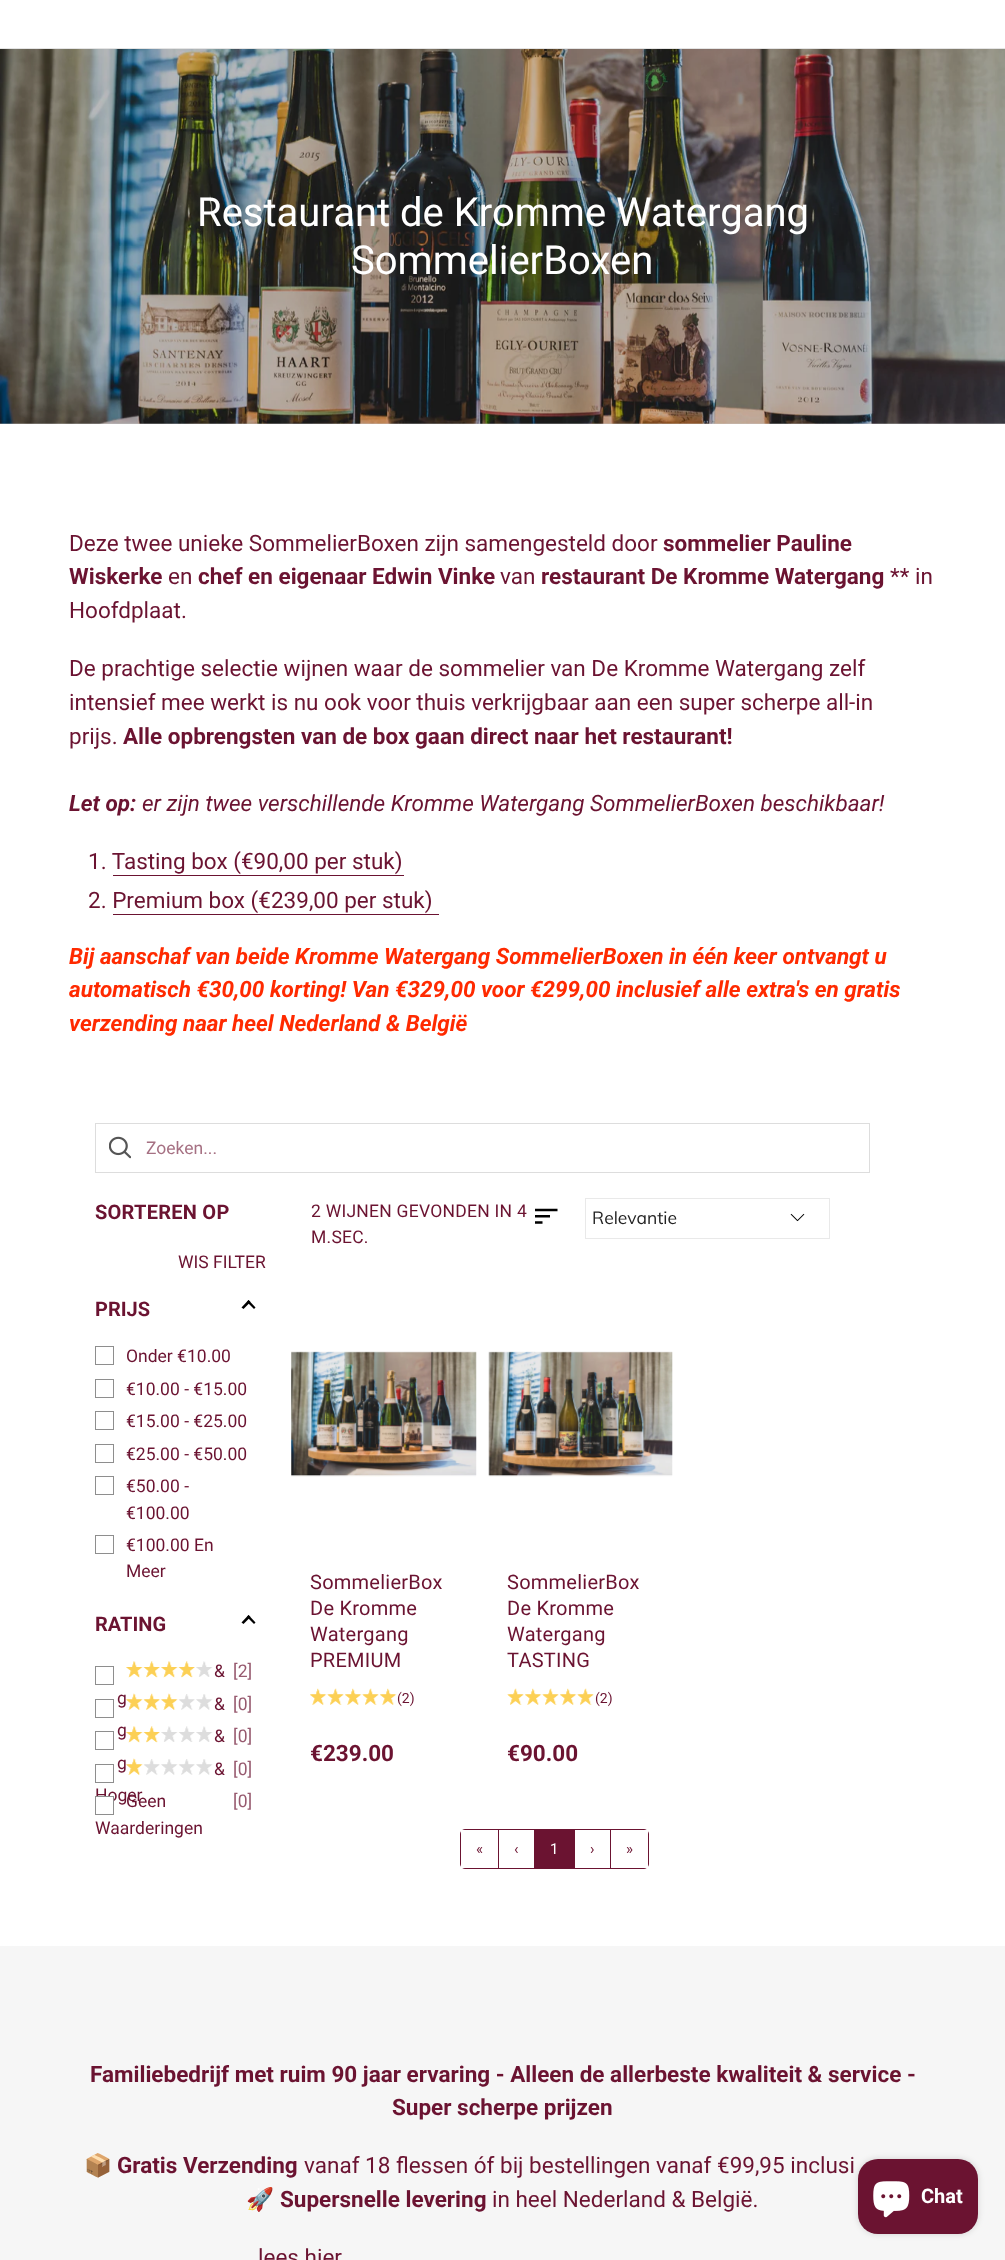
<!DOCTYPE html>
<meta charset="utf-8">
<style>body { margin: 0 } canvas { display: block }</style>
<canvas id="canvas" width="1005" height="2260"></canvas>
<script type="module">
  const canvas = document.getElementById("canvas");
  const g = canvas.getContext("2d");
  g.miterLimit = 4;
  g.fontKerning = "normal";
  function drawText(s, x, y, [font, color]) {
    g.font = font;
    g.fillStyle = color;
    g.fillText(s, x, y);
  }
  function fillBox(x, y, w, h, color) {
    g.fillStyle = color;
    g.fillRect(x, y, w, h);
  }
  function fillRounded(x, y, w, h, r, color) {
    g.fillStyle = color;
    g.beginPath();
    g.roundRect(x, y, w, h, r);
    g.fill();
  }
  async function drawPicture(src, x, y, w, h) {
    const img = new Image();
    img.src = src;
    await img.decode();
    g.drawImage(img, x, y, w, h);
  }

  const s1 = ["40px Roboto", "#FFFFFF"];
  const s2 = ["22.5px Roboto", "#6B1331"];
  const s3 = ["bold 22.5px Roboto", "#6B1331"];
  const s4 = ["italic bold 22.5px Roboto", "#6B1331"];
  const s5 = ["italic 22.5px Roboto", "#6B1331"];
  const s6 = ["italic bold 22.5px Roboto", "#FF2A00"];
  const s7 = ["17.5px Roboto", "#A67183"];
  const s8 = ["bold 20px Roboto", "#6B1331"];
  const s9 = ["17.5px Roboto", "#6B1331"];
  const s10 = ["17.5px Muli", "#222222"];
  const s11 = ["17.5px Roboto", "#975A6F"];
  const s12 = ["20px Roboto", "#6B1331"];
  const s13 = ["14px Roboto", "#6B1331"];
  const s14 = ["15px Roboto", "#6B1331"];
  const s15 = ["15px Roboto", "#FFFFFF"];
  const s16 = ["22.5px Noto Color Emoji", "#6B1331"];
  const s17 = ["bold 20px Roboto", "#FFFFFF"];

  fillBox(0, 0, 1005, 2260, "#FFFFFF");
  fillBox(0, 423, 1005, 1, "#CCCCCC");
  fillBox(0, 48, 1005, 1, "#E4E4E4");
  await drawPicture("pic1.png", 0, 49, 1005, 375);
  drawText("Restaurant de Kromme Watergang", 197, 226, s1);
  drawText("SommelierBoxen", 351, 274, s1);
  drawText("Deze twee unieke SommelierBoxen zijn samengesteld door", 69, 551, s2);
  drawText("sommelier Pauline", 663, 551, s3);
  drawText("Wiskerke", 69, 584, s3);
  drawText("en", 168, 584, s2);
  drawText("chef en eigenaar Edwin Vinke", 198, 584, s3);
  drawText("van", 500, 584, s2);
  drawText("restaurant De Kromme Watergang", 541, 584, s3);
  drawText("** in", 890, 584, s2);
  drawText("Hoofdplaat.", 69, 618, s2);
  drawText("De prachtige selectie wijnen waar de sommelier van De Kromme Watergang zelf", 69, 676, s2);
  drawText("intensief mee werkt is nu ook voor thuis verkrijgbaar aan een super scherpe all-in", 69, 710, s2);
  drawText("prijs.", 69, 744, s2);
  drawText("Alle opbrengsten van de box gaan direct naar het restaurant!", 123, 744, s3);
  drawText("Let op:", 69, 811, s4);
  drawText("er zijn twee verschillende Kromme Watergang SommelierBoxen beschikbaar!", 142, 811, s5);
  drawText("1. Tasting box (€90,00 per stuk)", 88, 869, s2);
  fillBox(113, 875, 291, 1, "#6B1331");
  drawText("2. Premium box (€239,00 per stuk)", 88, 908, s2);
  fillBox(113, 914, 326, 1, "#6B1331");
  drawText("Bij aanschaf van beide Kromme Watergang SommelierBoxen in één keer ontvangt u", 69, 964, s6);
  drawText("automatisch €30,00 korting! Van €329,00 voor €299,00 inclusief alle extra's en gratis", 69, 997, s6);
  drawText("verzending naar heel Nederland & België", 69, 1031, s6);
  await drawPicture("pic2.png", 109, 1136, 22, 23);
  g.strokeStyle = "#DDDDDD";
  g.strokeRect(95.5, 1123.5, 774, 49);
  drawText("Zoeken...", 146, 1154, s7);
  g.letterSpacing = "0.25px";
  drawText("SORTEREN OP", 95, 1219, s8);
  g.letterSpacing = "0px";
  drawText("WIS FILTER", 178, 1268, s9);
  g.letterSpacing = "0.25px";
  drawText("2 WIJNEN GEVONDEN IN 4", 311, 1217, s9);
  drawText("M.SEC.", 311, 1243, s9);
  await drawPicture("pic3.png", 535, 1208, 23, 16);
  await drawPicture("pic4.png", 790, 1213, 15, 9);
  g.strokeStyle = "#E9E9E9";
  g.strokeRect(585.5, 1198.5, 244, 40);
  g.letterSpacing = "0px";
  drawText("Relevantie", 592, 1224, s10);
  drawText("PRIJS", 95, 1316, s8);
  g.fillStyle = "#000000";
  g.beginPath();
  g.moveTo(243.5, 1309);
  g.lineTo(241.5, 1307.5);
  g.lineTo(248.5, 1300);
  g.lineTo(250.5, 1302);
  g.closePath();
  g.fill();
  g.beginPath();
  g.moveTo(254, 1309);
  g.lineTo(247, 1302);
  g.lineTo(248.5, 1300);
  g.lineTo(255.5, 1307.5);
  g.closePath();
  g.fill();
  g.strokeStyle = "#8E8E8E";
  g.strokeRect(95.5, 1346.5, 18, 18);
  drawText("Onder €10.00", 126, 1362, s9);
  g.strokeRect(95.5, 1379.5, 18, 18);
  drawText("€10.00 - €15.00", 126, 1395, s9);
  g.strokeRect(95.5, 1411.5, 18, 18);
  drawText("€15.00 - €25.00", 126, 1427, s9);
  g.strokeRect(95.5, 1444.5, 18, 18);
  drawText("€25.00 - €50.00", 126, 1460, s9);
  g.strokeRect(95.5, 1476.5, 18, 18);
  drawText("€50.00 -", 126, 1492, s9);
  drawText("€100.00", 126, 1519, s9);
  g.strokeRect(95.5, 1535.5, 18, 18);
  drawText("€100.00 En", 126, 1551, s9);
  drawText("Meer", 126, 1577, s9);
  drawText("RATING", 95, 1631, s8);
  g.fillStyle = "#000000";
  g.beginPath();
  g.moveTo(243.5, 1624);
  g.lineTo(241.5, 1622.5);
  g.lineTo(248.5, 1615);
  g.lineTo(250.5, 1617);
  g.closePath();
  g.fill();
  g.beginPath();
  g.moveTo(254, 1624);
  g.lineTo(247, 1617);
  g.lineTo(248.5, 1615);
  g.lineTo(255.5, 1622.5);
  g.closePath();
  g.fill();
  g.strokeRect(95.5, 1666.5, 18, 18);
  await drawPicture("pic5.png", 126, 1661, 17, 17);
  await drawPicture("pic6.png", 143, 1661, 17, 17);
  await drawPicture("pic7.png", 161, 1661, 17, 17);
  await drawPicture("pic8.png", 178, 1661, 17, 17);
  await drawPicture("pic9.png", 196, 1661, 17, 16);
  drawText("&", 214, 1677, s9);
  drawText("g", 117, 1704, s9);
  drawText("[2]", 233, 1677, s11);
  g.strokeRect(95.5, 1699.5, 18, 18);
  await drawPicture("pic10.png", 126, 1693, 17, 17);
  await drawPicture("pic11.png", 143, 1693, 18, 17);
  await drawPicture("pic12.png", 161, 1693, 17, 17);
  await drawPicture("pic13.png", 178, 1694, 17, 16);
  await drawPicture("pic14.png", 196, 1694, 17, 16);
  drawText("&", 214, 1710, s9);
  drawText("g", 117, 1736, s9);
  drawText("[0]", 233, 1710, s11);
  g.strokeRect(95.5, 1731.5, 18, 18);
  await drawPicture("pic15.png", 126, 1726, 17, 17);
  await drawPicture("pic16.png", 143, 1726, 17, 17);
  await drawPicture("pic17.png", 161, 1726, 17, 16);
  await drawPicture("pic18.png", 178, 1726, 17, 16);
  await drawPicture("pic19.png", 196, 1726, 17, 16);
  drawText("&", 214, 1742, s9);
  drawText("g", 117, 1769, s9);
  drawText("[0]", 233, 1742, s11);
  g.strokeRect(95.5, 1764.5, 18, 18);
  await drawPicture("pic20.png", 126, 1758, 17, 17);
  await drawPicture("pic21.png", 143, 1759, 17, 16);
  await drawPicture("pic22.png", 161, 1759, 17, 16);
  await drawPicture("pic23.png", 178, 1759, 17, 16);
  await drawPicture("pic14.png", 196, 1759, 17, 16);
  drawText("&", 214, 1775, s9);
  drawText("Hoger", 95, 1801, s9);
  drawText("[0]", 233, 1775, s11);
  fillBox(96, 1797, 17, 5, "#FFFFFF");
  g.strokeRect(95.5, 1796.5, 18, 18);
  drawText("Geen", 126, 1807, s9);
  drawText("Waarderingen", 95, 1834, s9);
  drawText("[0]", 233, 1807, s11);
  await drawPicture("pic24.png", 291, 1351, 186, 126);
  g.letterSpacing = "0.25px";
  drawText("SommelierBox", 310, 1589, s12);
  drawText("De Kromme", 310, 1615, s12);
  drawText("Watergang", 310, 1641, s12);
  drawText("PREMIUM", 310, 1667, s12);
  await drawPicture("pic25.png", 310, 1688, 17, 17);
  await drawPicture("pic26.png", 327, 1688, 17, 17);
  await drawPicture("pic27.png", 345, 1688, 17, 17);
  await drawPicture("pic28.png", 362, 1688, 17, 17);
  await drawPicture("pic29.png", 380, 1688, 17, 17);
  g.letterSpacing = "0px";
  drawText("(2)", 397, 1703, s13);
  drawText("€239.00", 310, 1761, s3);
  await drawPicture("pic30.png", 488, 1351, 185, 126);
  g.letterSpacing = "0.25px";
  drawText("SommelierBox", 507, 1589, s12);
  drawText("De Kromme", 507, 1615, s12);
  drawText("Watergang", 507, 1641, s12);
  drawText("TASTING", 507, 1667, s12);
  await drawPicture("pic31.png", 507, 1688, 17, 17);
  await drawPicture("pic32.png", 525, 1688, 17, 17);
  await drawPicture("pic33.png", 542, 1688, 17, 17);
  await drawPicture("pic34.png", 560, 1688, 17, 17);
  await drawPicture("pic26.png", 577, 1688, 17, 17);
  g.letterSpacing = "0px";
  drawText("(2)", 595, 1703, s13);
  drawText("€90.00", 507, 1761, s3);
  g.beginPath();
  g.roundRect(460.5, 1829.5, 188, 39, 4.5);
  g.strokeStyle = "#6B1331";
  g.stroke();
  fillBox(461, 1830, 4, 38, "#FFFFFF");
  fillBox(498, 1830, 1, 38, "#6B1331");
  drawText("«", 476, 1854, s14);
  fillBox(534, 1830, 41, 38, "#6B1331");
  drawText("‹", 514, 1854, s14);
  drawText("1", 550, 1854, s15);
  fillBox(610, 1830, 1, 38, "#6B1331");
  drawText("›", 590, 1854, s14);
  fillBox(644, 1830, 4, 38, "#FFFFFF");
  drawText("»", 626, 1854, s14);
  fillBox(0, 1946, 1005, 314, "#F6F6F6");
  drawText("Familiebedrijf met ruim 90 jaar ervaring - Alleen de allerbeste kwaliteit & service -", 90, 2082, s3);
  drawText("Super scherpe prijzen", 392, 2115, s3);
  drawText("📦", 84, 2173, s16);
  drawText("Gratis Verzending", 117, 2173, s3);
  drawText("vanaf 18 flessen óf bij bestellingen vanaf €99,95 inclusi", 304, 2173, s2);
  drawText("🚀", 246, 2207, s16);
  drawText("Supersnelle levering", 280, 2207, s3);
  drawText("in heel Nederland & België.", 492, 2207, s2);
  drawText("lees hier", 258, 2265, s2);
  g.fillStyle = "rgba(0, 0, 0, 0.15)";
  g.filter = "blur(3px)";
  g.beginPath();
  g.roundRect(858, 2159, 120, 75, 20);
  g.fill();
  g.filter = "none";
  fillRounded(858, 2159, 120, 75, 20, "#6B1331");
  await drawPicture("pic35.png", 873, 2181, 37, 37);
  drawText("Chat", 921, 2203, s17);
</script>
